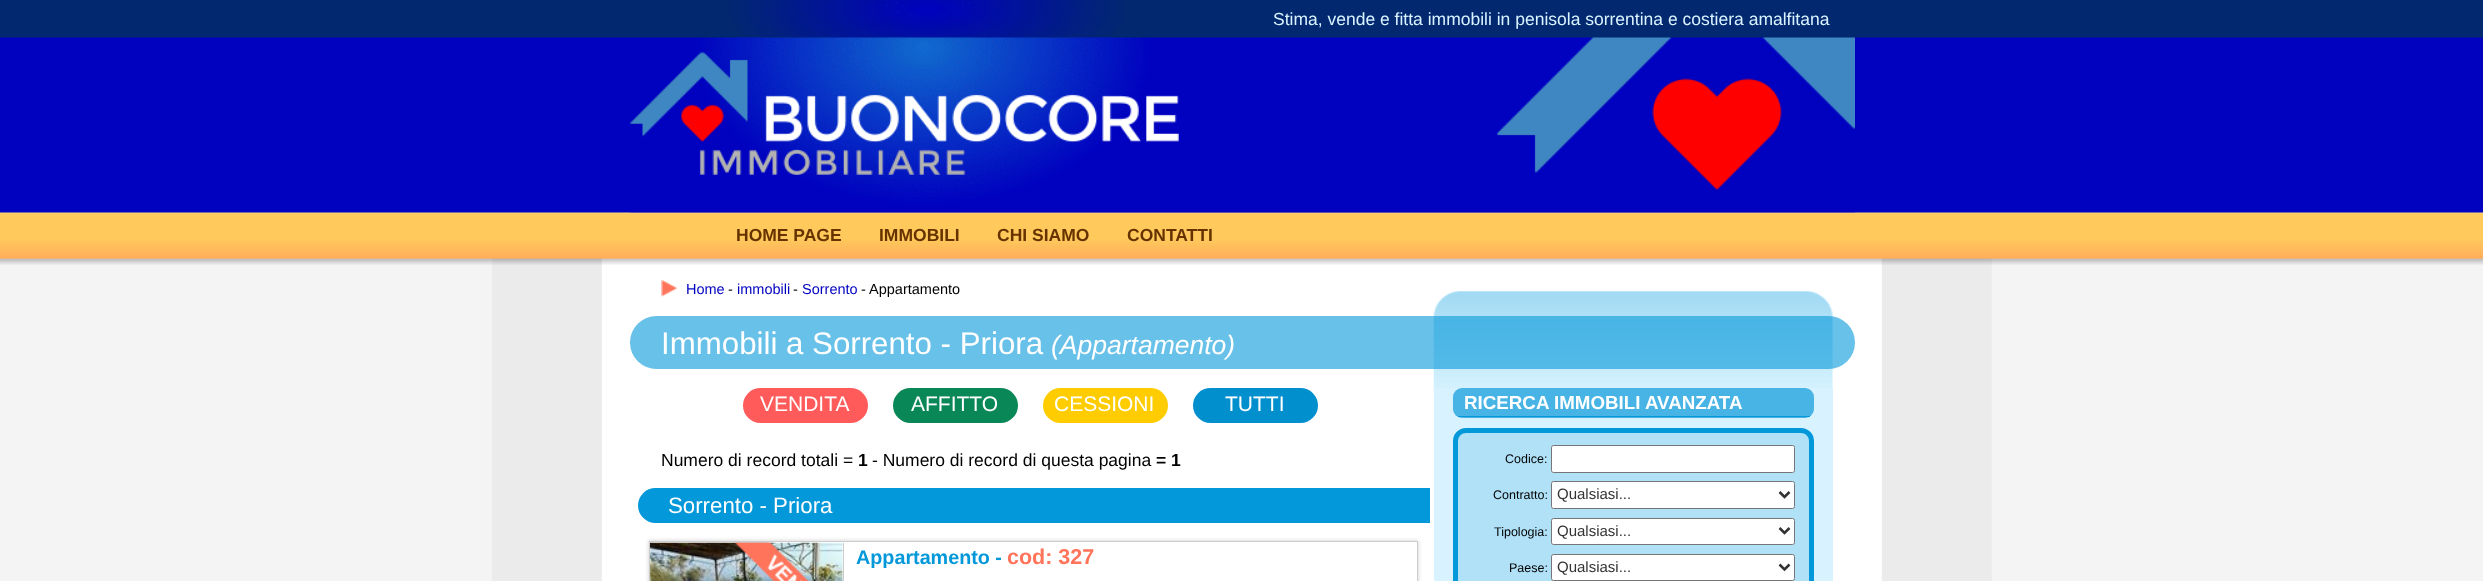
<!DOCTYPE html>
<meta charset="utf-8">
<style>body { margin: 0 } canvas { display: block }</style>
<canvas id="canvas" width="2483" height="581"></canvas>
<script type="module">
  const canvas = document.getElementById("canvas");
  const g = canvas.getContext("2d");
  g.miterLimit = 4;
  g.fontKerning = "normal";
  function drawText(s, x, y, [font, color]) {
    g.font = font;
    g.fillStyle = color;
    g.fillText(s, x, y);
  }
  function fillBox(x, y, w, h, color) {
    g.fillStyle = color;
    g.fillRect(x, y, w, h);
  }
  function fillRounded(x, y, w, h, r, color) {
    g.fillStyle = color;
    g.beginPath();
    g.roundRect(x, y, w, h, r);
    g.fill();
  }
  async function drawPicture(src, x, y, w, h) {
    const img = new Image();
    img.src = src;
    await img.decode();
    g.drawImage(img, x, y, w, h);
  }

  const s1 = ["17.5px Liberation Sans", "#D9F3FF"];
  const s2 = ["bold 17.5px Liberation Sans", "#663300"];
  const s3 = ["14.5px Liberation Sans", "#0002BF"];
  const s4 = ["14.5px Liberation Sans", "#000000"];
  const s5 = ["31.25px Liberation Sans", "#FFFFFF"];
  const s6 = ["italic 26.5px Liberation Sans", "#FFFFFF"];
  const s7 = ["21px Liberation Sans", "#FFFFFF"];
  const s8 = ["17.5px Liberation Sans", "#000000"];
  const s9 = ["bold 17.5px Liberation Sans", "#000000"];
  const s10 = ["22.25px Liberation Sans", "#FFFFFF"];
  const s11 = ["bold 19.75px Liberation Sans", "#0398DA"];
  const s12 = ["bold 21.5px Liberation Sans", "#FF745B"];
  const s13 = ["bold 18.75px Liberation Sans", "#FFFFFF"];
  const s14 = ["12.5px Liberation Sans", "#000000"];
  const s15 = ["15px Liberation Sans", "#333333"];

  fillBox(0, 0, 2483, 581, "#F4F4F4");
  await drawPicture("pic1.png", 492, 258, 1500, 323);
  await drawPicture("pic2.png", 0, 0, 2483, 265);
  fillBox(630, 212, 1225, 1, "#BE9E8A");
  await drawPicture("pic3.png", 630, 0, 1225, 213);
  drawText("Stima, vende e fitta immobili in penisola sorrentina e costiera amalfitana", 1273, 25, s1);
  await drawPicture("pic4.png", 630, 52, 549, 123);
  drawText("HOME PAGE", 736, 241, s2);
  drawText("IMMOBILI", 879, 241, s2);
  drawText("CHI SIAMO", 997, 241, s2);
  drawText("CONTATTI", 1127, 241, s2);
  await drawPicture("pic5.png", 1433, 291, 400, 104);
  await drawPicture("pic6.png", 661, 280, 17, 17);
  drawText("Home", 686, 294, s3);
  drawText("-", 728, 294, s4);
  drawText("immobili", 737, 294, s3);
  drawText("-", 793, 294, s4);
  drawText("Sorrento", 802, 294, s3);
  drawText("- Appartamento", 861, 294, s4);
  fillRounded(630, 316, 1225, 53, 26.5, "rgba(3, 152, 218, 0.6)");
  drawText("Immobili a Sorrento - Priora", 661, 354, s5);
  drawText("(Appartamento)", 1051, 354, s6);
  fillRounded(743, 388, 125, 35, 17.5, "#FF5B5B");
  drawText("VENDITA", 760, 411, s7);
  fillRounded(893, 388, 125, 35, 17.5, "#098757");
  drawText("AFFITTO", 911, 411, s7);
  fillRounded(1043, 388, 125, 35, 17.5, "#FFCC00");
  drawText("CESSIONI", 1054, 411, s7);
  fillRounded(1193, 388, 125, 35, 17.5, "#028FCE");
  drawText("TUTTI", 1225, 411, s7);
  drawText("Numero di record totali =", 661, 466, s8);
  drawText("1", 858, 466, s9);
  drawText("- Numero di record di questa pagina", 872, 466, s8);
  drawText("= 1", 1156, 466, s9);
  g.fillStyle = "#0398DA";
  g.beginPath();
  g.roundRect(638, 488, 792, 35, [17.5, 0, 0, 17.5]);
  g.fill();
  drawText("Sorrento - Priora", 668, 513, s10);
  g.save();
  g.beginPath();
  g.moveTo(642, 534);
  g.lineTo(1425, 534);
  g.lineTo(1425, 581);
  g.lineTo(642, 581);
  g.closePath();
  g.moveTo(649, 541);
  g.lineTo(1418, 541);
  g.lineTo(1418, 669);
  g.lineTo(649, 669);
  g.closePath();
  g.clip("evenodd");
  g.fillStyle = "#CCCCCC";
  g.filter = "blur(2px)";
  g.beginPath();
  g.rect(649, 541, 769, 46);
  g.fill();
  g.filter = "none";
  g.restore();
  g.strokeStyle = "#CCCCCC";
  g.strokeRect(649.5, 541.5, 768, 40);
  fillBox(843, 543, 1, 38, "#CCCCCC");
  await drawPicture("pic7.png", 650, 542, 193, 39);
  await drawPicture("pic8.png", 735, 542, 74, 39);
  drawText("Appartamento -", 856, 564, s11);
  drawText("cod: 327", 1007, 564, s12);
  fillBox(1434, 388, 399, 193, "#D8F2FF");
  fillRounded(1453, 388, 361, 30, 9, "#47B4E5");
  fillBox(1458, 416, 352, 1, "#0398DA");
  drawText("RICERCA IMMOBILI AVANZATA", 1464, 409, s13);
  g.fillStyle = "#B0E1F7";
  g.beginPath();
  g.roundRect(1455.5, 430.5, 356, 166, 10.5);
  g.fill();
  g.strokeStyle = "#0398DA";
  g.lineWidth = 5;
  g.stroke();
  drawText("Codice:", 1505, 463, s14);
  g.fillStyle = "#FFFFFF";
  g.beginPath();
  g.roundRect(1551.5, 445.5, 243, 27, 2);
  g.fill();
  g.strokeStyle = "#767676";
  g.lineWidth = 1;
  g.stroke();
  drawText("Contratto:", 1493, 499, s14);
  g.fillStyle = "#FFFFFF";
  g.beginPath();
  g.roundRect(1551.5, 481.5, 243, 27, 2);
  g.fill();
  g.stroke();
  g.beginPath();
  g.moveTo(1779.5, 492);
  g.lineTo(1784.5, 497);
  g.lineTo(1789.5, 492);
  g.strokeStyle = "#333333";
  g.lineWidth = 2.5;
  g.stroke();
  drawText("Qualsiasi...", 1557, 499, s15);
  drawText("Tipologia:", 1494, 536, s14);
  g.fillStyle = "#FFFFFF";
  g.beginPath();
  g.roundRect(1551.5, 518.5, 243, 26, 2);
  g.fill();
  g.strokeStyle = "#767676";
  g.lineWidth = 1;
  g.stroke();
  g.beginPath();
  g.moveTo(1779.5, 528);
  g.lineTo(1784.5, 533);
  g.lineTo(1789.5, 528);
  g.strokeStyle = "#333333";
  g.lineWidth = 2.5;
  g.stroke();
  drawText("Qualsiasi...", 1557, 536, s15);
  drawText("Paese:", 1509, 572, s14);
  g.fillStyle = "#FFFFFF";
  g.beginPath();
  g.roundRect(1551.5, 554.5, 243, 26, 2);
  g.fill();
  g.strokeStyle = "#767676";
  g.lineWidth = 1;
  g.stroke();
  g.beginPath();
  g.moveTo(1779.5, 564.5);
  g.lineTo(1784.5, 569.5);
  g.lineTo(1789.5, 564.5);
  g.strokeStyle = "#333333";
  g.lineWidth = 2.5;
  g.stroke();
  drawText("Qualsiasi...", 1557, 572, s15);
</script>
